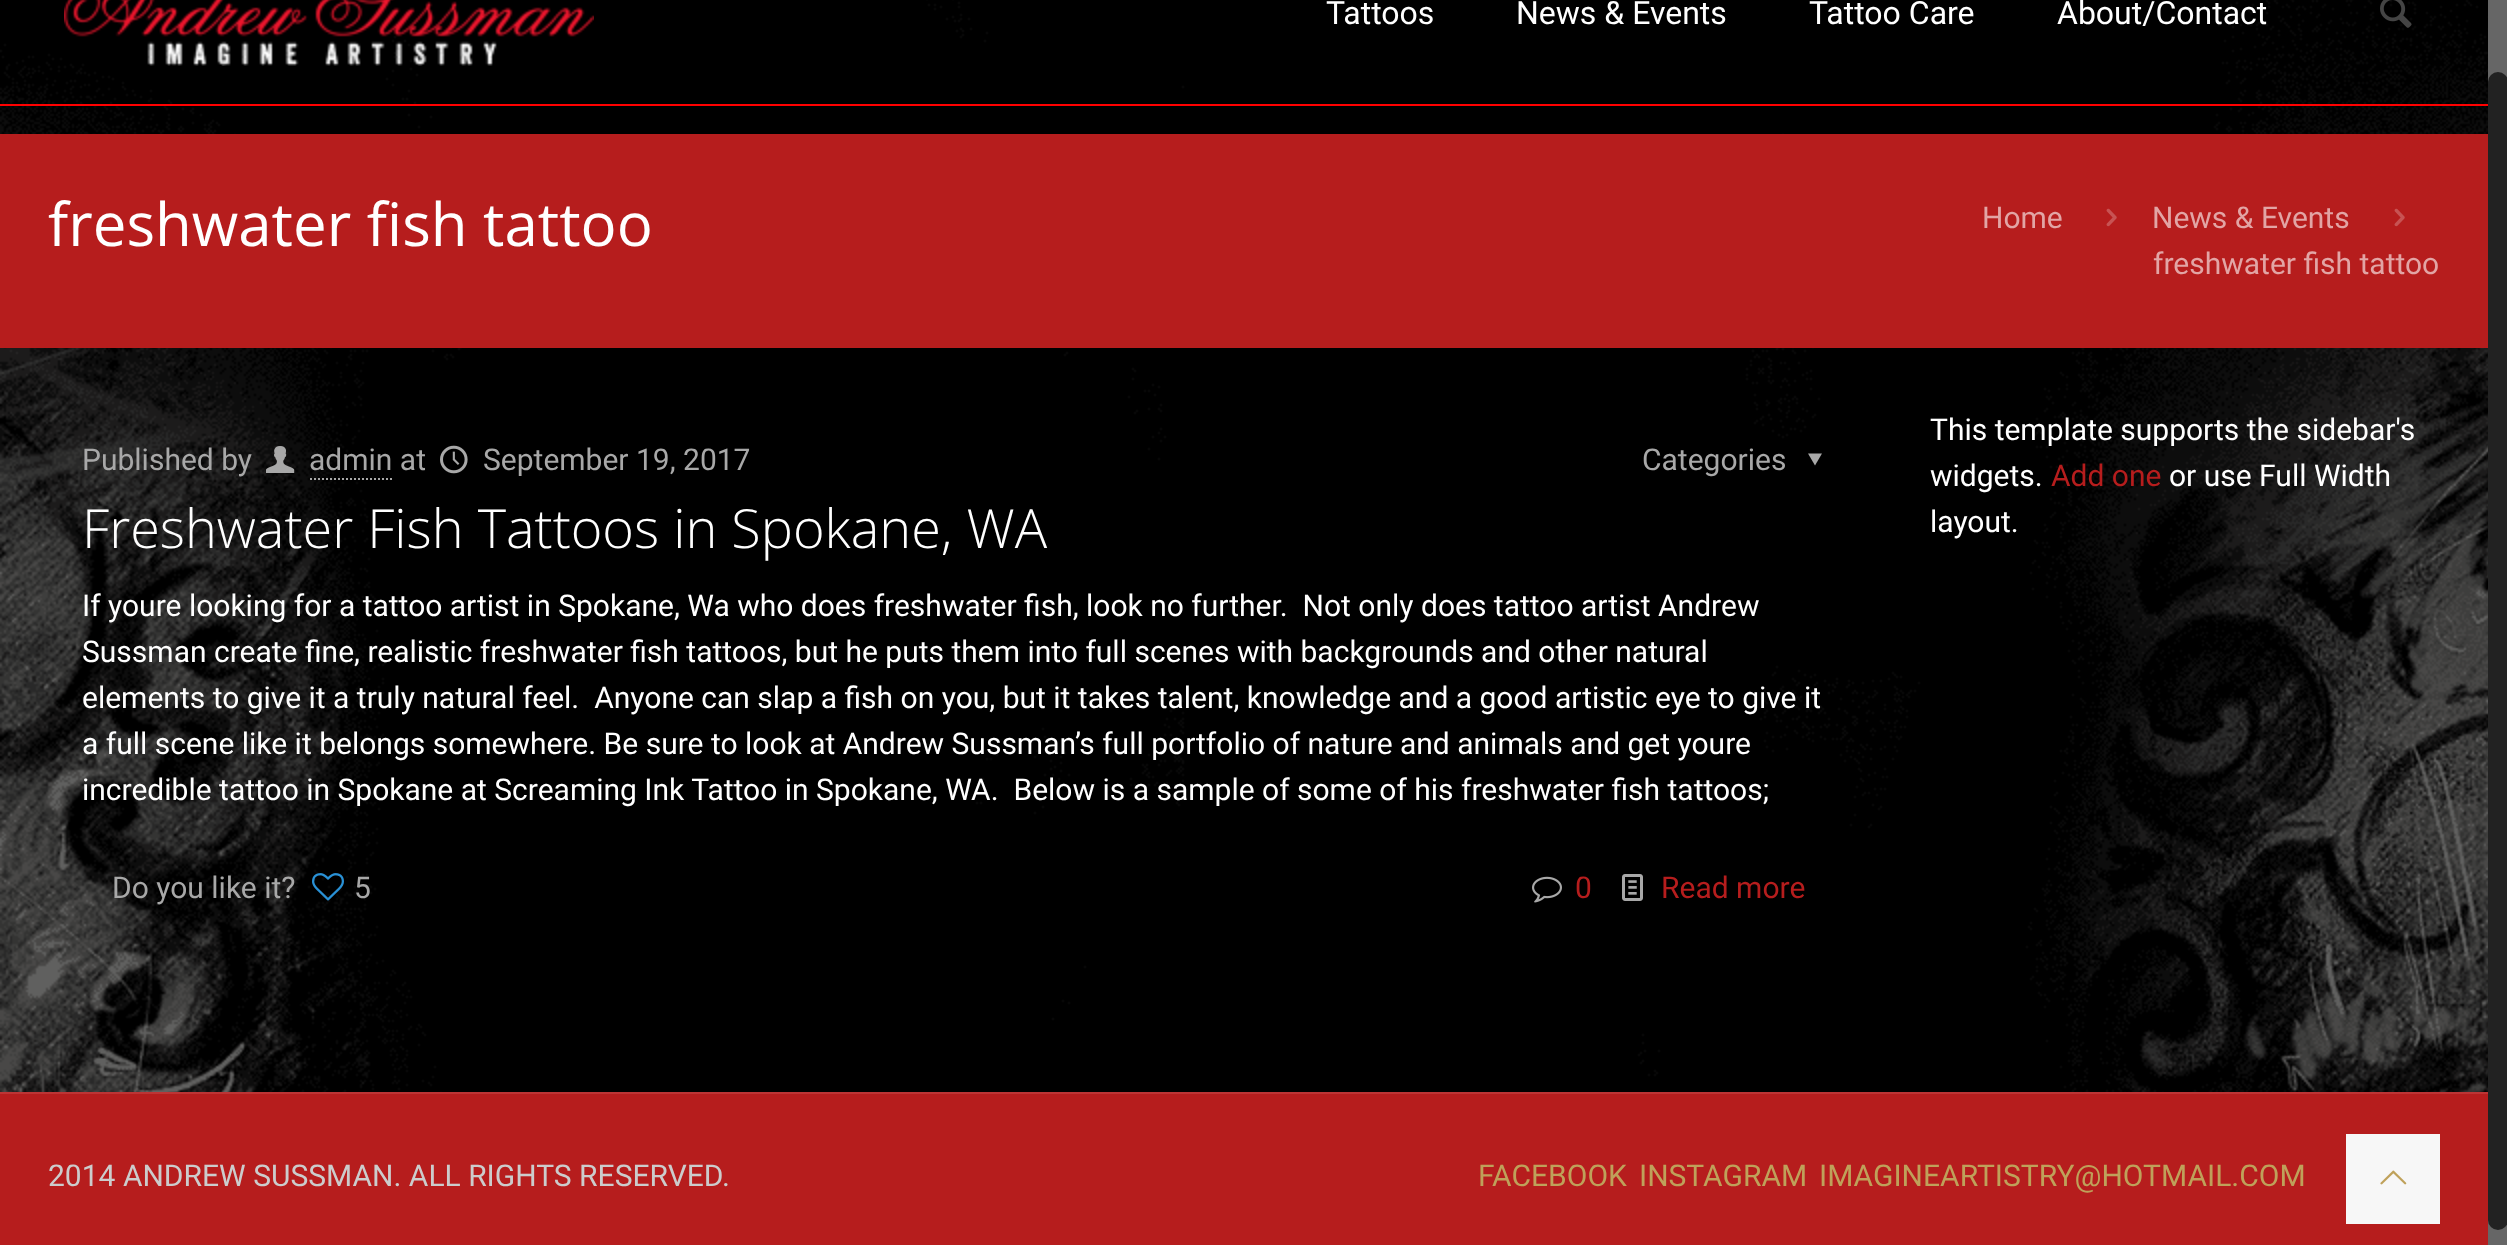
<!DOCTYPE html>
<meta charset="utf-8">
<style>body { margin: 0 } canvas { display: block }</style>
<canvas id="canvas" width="2507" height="1245"></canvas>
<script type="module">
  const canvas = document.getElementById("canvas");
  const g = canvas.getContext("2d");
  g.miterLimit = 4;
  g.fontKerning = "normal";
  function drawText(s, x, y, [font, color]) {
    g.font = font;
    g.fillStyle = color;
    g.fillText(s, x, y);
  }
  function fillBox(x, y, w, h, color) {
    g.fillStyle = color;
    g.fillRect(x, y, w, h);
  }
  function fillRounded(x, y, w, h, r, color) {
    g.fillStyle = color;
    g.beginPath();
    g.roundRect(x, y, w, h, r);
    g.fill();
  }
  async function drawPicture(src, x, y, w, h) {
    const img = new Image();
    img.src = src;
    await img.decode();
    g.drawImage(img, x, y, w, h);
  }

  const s1 = ["32px Roboto", "#FFFFFF"];
  const s2 = ["60px Open Sans", "#FFFFFF"];
  const s3 = ["30px Roboto", "#E2A5A5"];
  const s4 = ["30px Roboto", "#A8A8A8"];
  const s5 = ["300 54px Open Sans", "#FFFFFF"];
  const s6 = ["30px Roboto", "#FFFFFF"];
  const s7 = ["30px Roboto", "#B61D1D"];
  const s8 = ["30px Roboto", "#CCCCCC"];
  const s9 = ["30px Roboto", "#BFA15A"];

  fillBox(0, 0, 2507, 1245, "#FFFFFF");
  await drawPicture("pic1.png", 0, 0, 2488, 1092);
  fillBox(0, 104, 2488, 2, "#FF0000");
  await drawPicture("pic2.png", 64, 0, 530, 66);
  drawText("Tattoos", 1326, 24, s1);
  drawText("News & Events", 1516, 24, s1);
  drawText("Tattoo Care", 1809, 24, s1);
  drawText("About/Contact", 2057, 24, s1);
  await drawPicture("pic3.png", 2380, 0, 32, 28);
  fillBox(0, 134, 2488, 214, "#B61D1D");
  drawText("freshwater fish tattoo", 48, 246, s2);
  drawText("Home", 1982, 228, s3);
  await drawPicture("pic4.png", 2106, 208, 11, 19);
  drawText("News & Events", 2152, 228, s3);
  await drawPicture("pic4.png", 2394, 208, 11, 19);
  drawText("freshwater fish tattoo", 2153, 274, s3);
  drawText("Published by", 82, 470, s4);
  await drawPicture("pic5.png", 266, 446, 29, 27);
  drawText("admin at", 309, 470, s4);
  g.beginPath();
  g.moveTo(310, 479);
  g.lineTo(392, 479);
  g.strokeStyle = "#A8A8A8";
  g.lineWidth = 2;
  g.setLineDash([2, 2]);
  g.stroke();
  await drawPicture("pic6.png", 440, 445, 28, 29);
  drawText("September 19, 2017", 483, 470, s4);
  drawText("Categories", 1642, 470, s4);
  g.beginPath();
  g.moveTo(1822, 453.5);
  g.lineTo(1815, 465.5);
  g.lineTo(1808, 453.5);
  g.closePath();
  g.fill();
  drawText("Freshwater Fish Tattoos in Spokane, WA", 82, 548, s5);
  drawText("If youre looking for a tattoo artist in Spokane, Wa who does freshwater fish, look no further.  Not only does tattoo artist Andrew", 82, 616, s6);
  drawText("Sussman create fine, realistic freshwater fish tattoos, but he puts them into full scenes with backgrounds and other natural", 82, 662, s6);
  drawText("elements to give it a truly natural feel.  Anyone can slap a fish on you, but it takes talent, knowledge and a good artistic eye to give it", 82, 708, s6);
  drawText("a full scene like it belongs somewhere. Be sure to look at Andrew Sussman’s full portfolio of nature and animals and get youre", 82, 754, s6);
  drawText("incredible tattoo in Spokane at Screaming Ink Tattoo in Spokane, WA.  Below is a sample of some of his freshwater fish tattoos;", 82, 800, s6);
  drawText("Do you like it?", 112, 898, s4);
  await drawPicture("pic7.png", 312, 873, 32, 28);
  drawText("5", 354, 898, s4);
  await drawPicture("pic8.png", 1532, 876, 30, 27);
  drawText("0", 1575, 898, s7);
  await drawPicture("pic9.png", 1622, 874, 21, 27);
  drawText("Read more", 1661, 898, s7);
  drawText("This template supports the sidebar's", 1930, 440, s6);
  drawText("widgets.", 1930, 486, s6);
  drawText("Add one", 2051, 486, s7);
  drawText("or use Full Width", 2169, 486, s6);
  drawText("layout.", 1930, 532, s6);
  fillBox(0, 1094, 2488, 151, "#B61D1D");
  fillBox(0, 1092, 2488, 2, "#BD3434");
  drawText("2014 ANDREW SUSSMAN. ALL RIGHTS RESERVED.", 48, 1186, s8);
  drawText("FACEBOOK", 1478, 1186, s9);
  drawText("INSTAGRAM", 1639, 1186, s9);
  drawText("IMAGINEARTISTRY@HOTMAIL.COM", 1819, 1186, s9);
  fillBox(2346, 1134, 94, 90, "#F7F7F7");
  await drawPicture("pic10.png", 2380, 1170, 27, 15);
  fillBox(2488, 0, 19, 1245, "#666666");
  fillRounded(2488, 72, 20, 1158, 10, "#222222");
</script>
